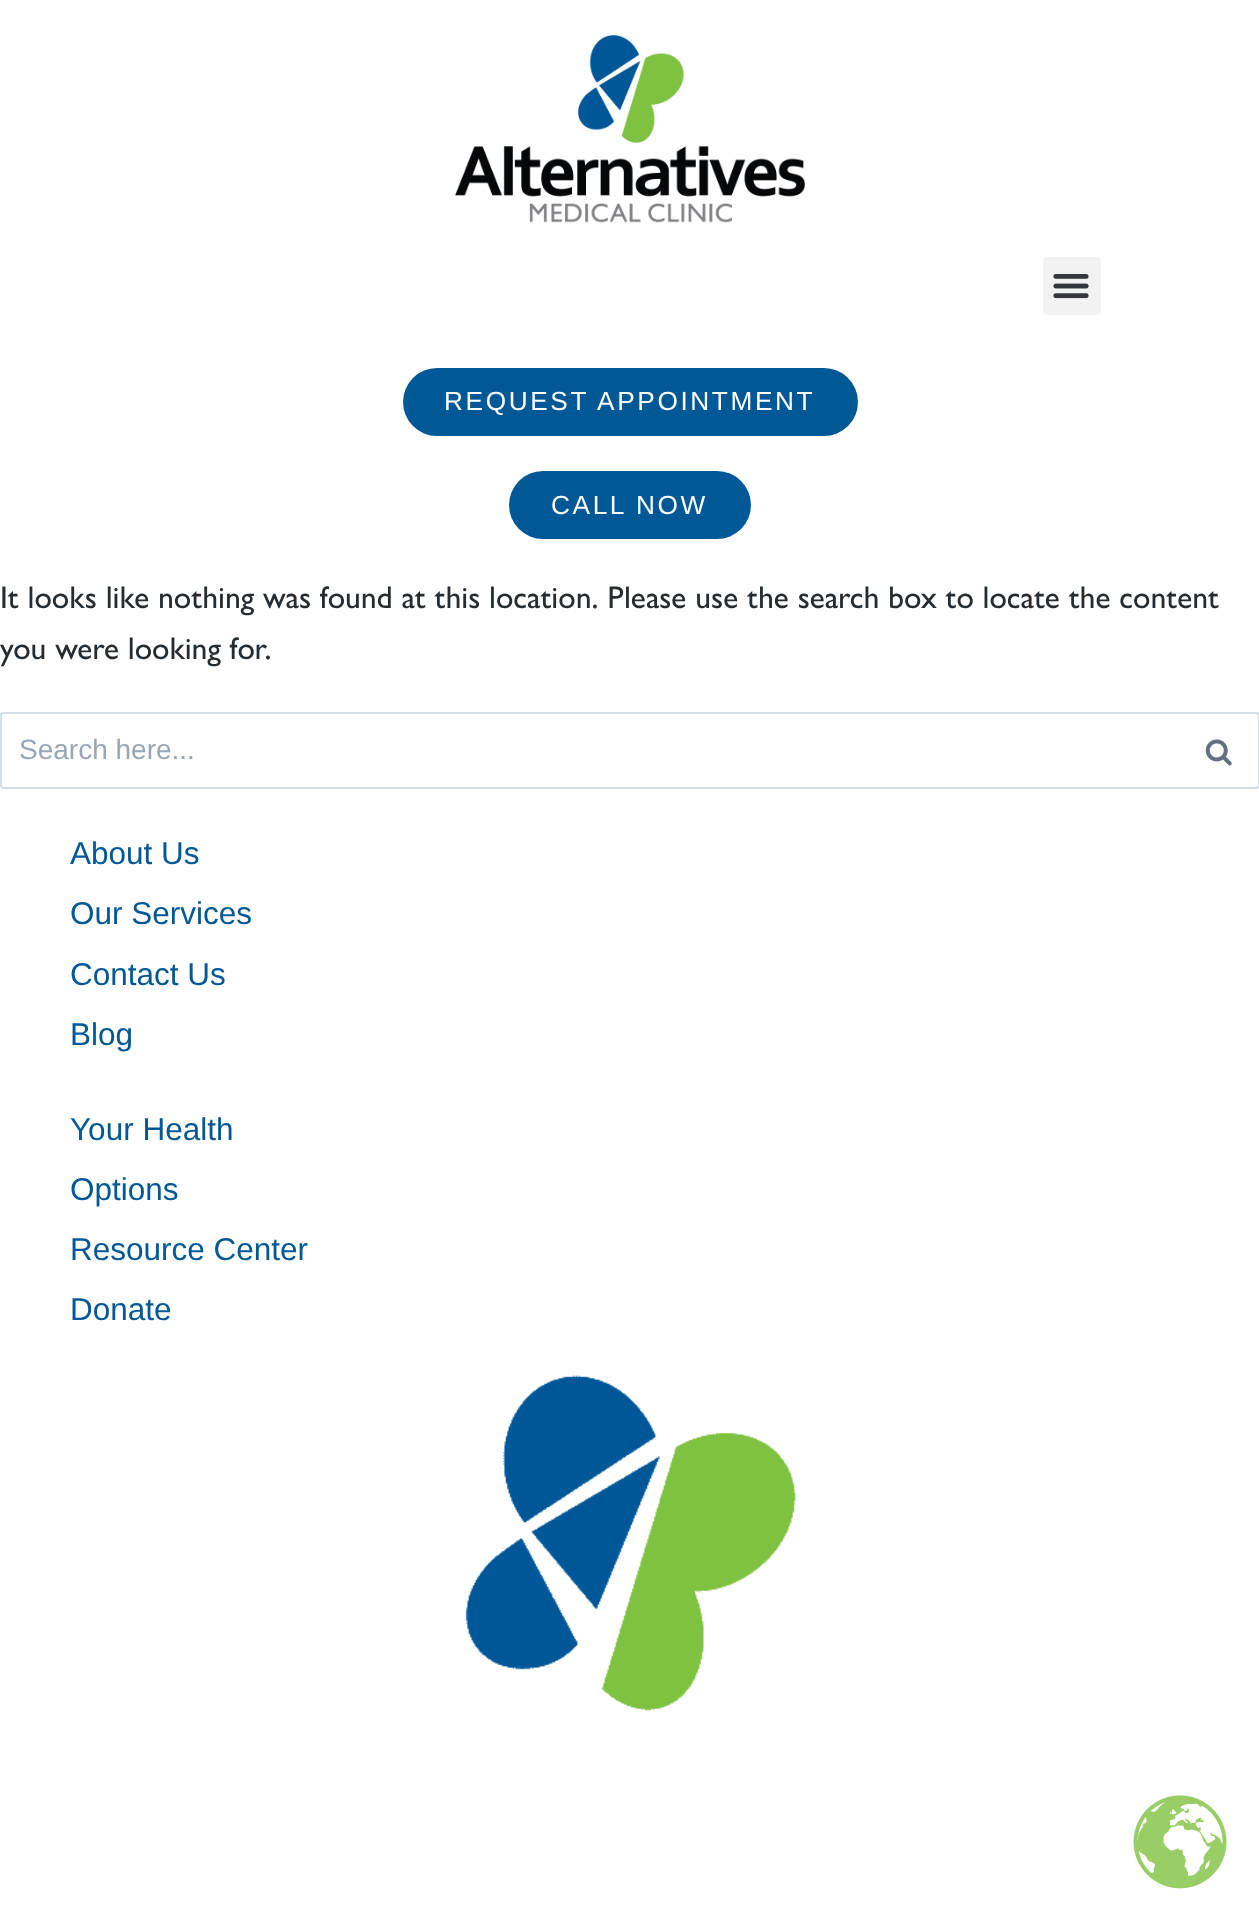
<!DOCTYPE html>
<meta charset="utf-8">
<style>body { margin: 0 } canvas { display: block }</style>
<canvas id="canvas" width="1259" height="1923"></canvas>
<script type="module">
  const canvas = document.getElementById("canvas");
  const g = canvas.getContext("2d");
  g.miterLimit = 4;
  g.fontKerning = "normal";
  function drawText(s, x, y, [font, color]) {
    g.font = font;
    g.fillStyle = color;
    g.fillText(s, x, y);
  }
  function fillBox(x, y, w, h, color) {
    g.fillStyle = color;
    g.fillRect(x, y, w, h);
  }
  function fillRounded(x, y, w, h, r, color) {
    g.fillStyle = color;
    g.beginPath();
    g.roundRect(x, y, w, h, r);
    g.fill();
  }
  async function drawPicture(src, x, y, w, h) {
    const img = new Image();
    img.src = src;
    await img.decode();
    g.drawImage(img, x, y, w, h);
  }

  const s1 = ["26.25px Liberation Sans", "#FFFFFF"];
  const s2 = ["500 31.5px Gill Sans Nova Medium", "#272C30"];
  const s3 = ["28px Liberation Sans", "#97A7B5"];
  const s4 = ["31.5px Liberation Sans", "#005897"];

  fillBox(0, 0, 1259, 1923, "#FFFFFF");
  await drawPicture("pic1.png", 455, 35, 350, 188);
  fillRounded(1043, 257, 58, 58, 5, "#F2F2F2");
  await drawPicture("pic2.png", 1053, 274, 36, 25);
  fillRounded(403, 368, 455, 68, 34, "#005897");
  g.letterSpacing = "2.6px";
  drawText("REQUEST APPOINTMENT", 444, 410, s1);
  fillRounded(509, 471, 242, 68, 34, "#005897");
  drawText("CALL NOW", 551, 514, s1);
  g.letterSpacing = "0px";
  drawText("It looks like nothing was found at this location. Please use the search box to locate the content", 0, 608, s2);
  drawText("you were looking for.", 0, 659, s2);
  g.beginPath();
  g.roundRect(1, 713, 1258, 75, 3);
  g.strokeStyle = "#D4DDE5";
  g.lineWidth = 2;
  g.stroke();
  drawText("Search here...", 19, 759, s3);
  await drawPicture("pic3.png", 1205, 739, 27, 27);
  drawText("About Us", 70, 864, s4);
  drawText("Our Services", 70, 924, s4);
  drawText("Contact Us", 70, 985, s4);
  drawText("Blog", 70, 1045, s4);
  drawText("Your Health", 70, 1140, s4);
  drawText("Options", 70, 1200, s4);
  drawText("Resource Center", 70, 1260, s4);
  drawText("Donate", 70, 1320, s4);
  await drawPicture("pic4.png", 465, 1375, 331, 336);
  await drawPicture("pic5.png", 1133, 1795, 94, 94);
</script>
